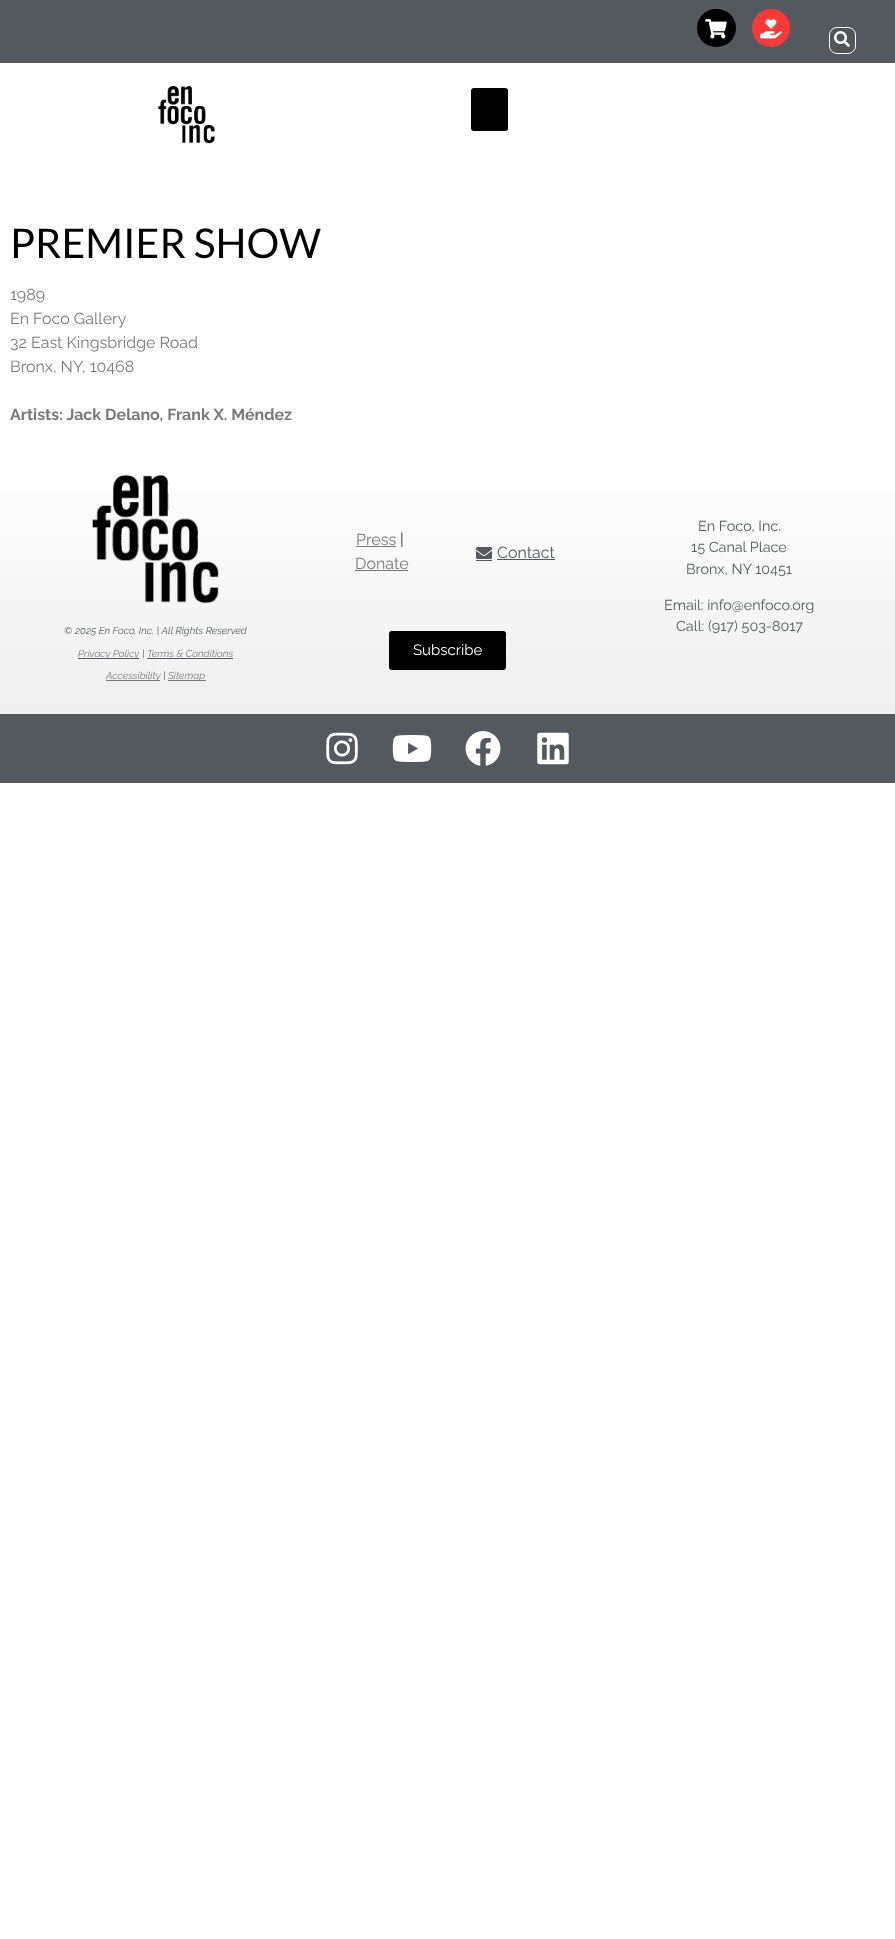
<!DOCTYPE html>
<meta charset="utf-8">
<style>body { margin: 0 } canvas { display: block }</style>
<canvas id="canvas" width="895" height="1939"></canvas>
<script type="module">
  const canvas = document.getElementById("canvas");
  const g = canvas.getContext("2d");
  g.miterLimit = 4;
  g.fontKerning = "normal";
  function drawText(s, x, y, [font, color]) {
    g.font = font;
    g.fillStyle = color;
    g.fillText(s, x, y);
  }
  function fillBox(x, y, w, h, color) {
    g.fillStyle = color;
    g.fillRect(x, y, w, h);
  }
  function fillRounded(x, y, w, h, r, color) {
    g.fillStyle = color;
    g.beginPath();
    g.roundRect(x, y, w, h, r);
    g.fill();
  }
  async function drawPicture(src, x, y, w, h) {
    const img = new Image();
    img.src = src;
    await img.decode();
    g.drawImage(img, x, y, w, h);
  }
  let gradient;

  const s1 = ["41px Lato", "#000000"];
  const s2 = ["16px Raleway", "#7A7A7A"];
  const s3 = ["bold 16px Raleway", "#7A7A7A"];
  const s4 = ["italic 10px Raleway", "#54595F"];
  const s5 = ["italic 10px Raleway", "#7A7A7A"];
  const s6 = ["16px Raleway", "#333333"];
  const s7 = ["16px Raleway", "#54595F"];
  const s8 = ["15px Raleway", "#FFFFFF"];
  const s9 = ["14.4px Raleway", "#54595F"];

  fillBox(0, 0, 895, 1939, "#FFFFFF");
  fillBox(0, 0, 895, 63, "#54595F");
  fillRounded(697, 9, 39, 38, 19, "#000000");
  await drawPicture("pic1.png", 705, 19, 22, 20);
  g.fillStyle = "#FF3838";
  g.beginPath();
  g.arc(771, 28, 19, 0, Math.PI * 2);
  g.fill();
  await drawPicture("pic2.png", 760, 19, 22, 20);
  g.fillStyle = "#50555A";
  g.beginPath();
  g.roundRect(829.5, 27.5, 26, 26, 7.5);
  g.fill();
  g.strokeStyle = "#FFFFFF";
  g.stroke();
  await drawPicture("pic3.png", 834, 31, 16, 16);
  await drawPicture("pic4.png", 158, 85, 57, 59);
  fillRounded(471, 88, 37, 43, 3, "#000000");
  drawText("PREMIER SHOW", 10, 258, s1);
  drawText("1989", 10, 300, s2);
  drawText("En Foco Gallery", 10, 324, s2);
  drawText("32 East Kingsbridge Road", 10, 348, s2);
  drawText("Bronx, NY, 10468", 10, 372, s2);
  drawText("Artists: Jack Delano, Frank X. Méndez", 10, 420, s3);
  gradient = g.createLinearGradient(448, 451, 448, 714);
  gradient.addColorStop(0, "#FFFFFF");
  gradient.addColorStop(1, "#EFEFEF");
  g.fillStyle = gradient;
  g.fillRect(0, 492, 895, 222);
  await drawPicture("pic5.png", 92, 474, 127, 130);
  drawText("© 2025 En Foco, Inc. | All Rights Reserved", 64, 634, s4);
  fillBox(78, 658, 61, 1, "#54595F");
  drawText("Privacy Policy", 78, 657, s5);
  drawText("|", 142, 657, s4);
  drawText("Terms & Conditions", 147, 657, s5);
  fillBox(147, 658, 86, 1, "#54595F");
  fillBox(106, 680, 54, 1, "#7A7A7A");
  drawText("Accessibility", 106, 679, s5);
  drawText("|", 163, 679, s4);
  fillBox(168, 680, 38, 1, "#7A7A7A");
  drawText("Sitemap", 168, 679, s5);
  drawText("Press", 356, 545, s2);
  fillBox(356, 546, 40, 1, "#7A7A7A");
  drawText("|", 400, 545, s6);
  drawText("Donate", 355, 569, s2);
  fillBox(355, 570, 53, 1, "#7A7A7A");
  await drawPicture("pic6.png", 476, 547, 16, 12);
  fillBox(476, 560, 16, 1, "#54595F");
  drawText("Contact", 497, 558, s7);
  fillBox(497, 559, 58, 1, "#54595F");
  fillRounded(389, 631, 117, 39, 3, "#000000");
  drawText("Subscribe", 413, 655, s8);
  drawText("En Foco, Inc.", 698, 531, s9);
  drawText("15 Canal Place", 691, 552, s9);
  drawText("Bronx, NY 10451", 686, 574, s9);
  drawText("Email: info@enfoco.org", 664, 610, s9);
  drawText("Call: (917) 503-8017", 676, 631, s9);
  fillBox(0, 714, 895, 69, "#54595F");
  await drawPicture("pic7.png", 326, 732, 32, 33);
  await drawPicture("pic8.png", 392, 735, 40, 27);
  await drawPicture("pic9.png", 465, 731, 36, 35);
  await drawPicture("pic10.png", 537, 732, 32, 33);
</script>
